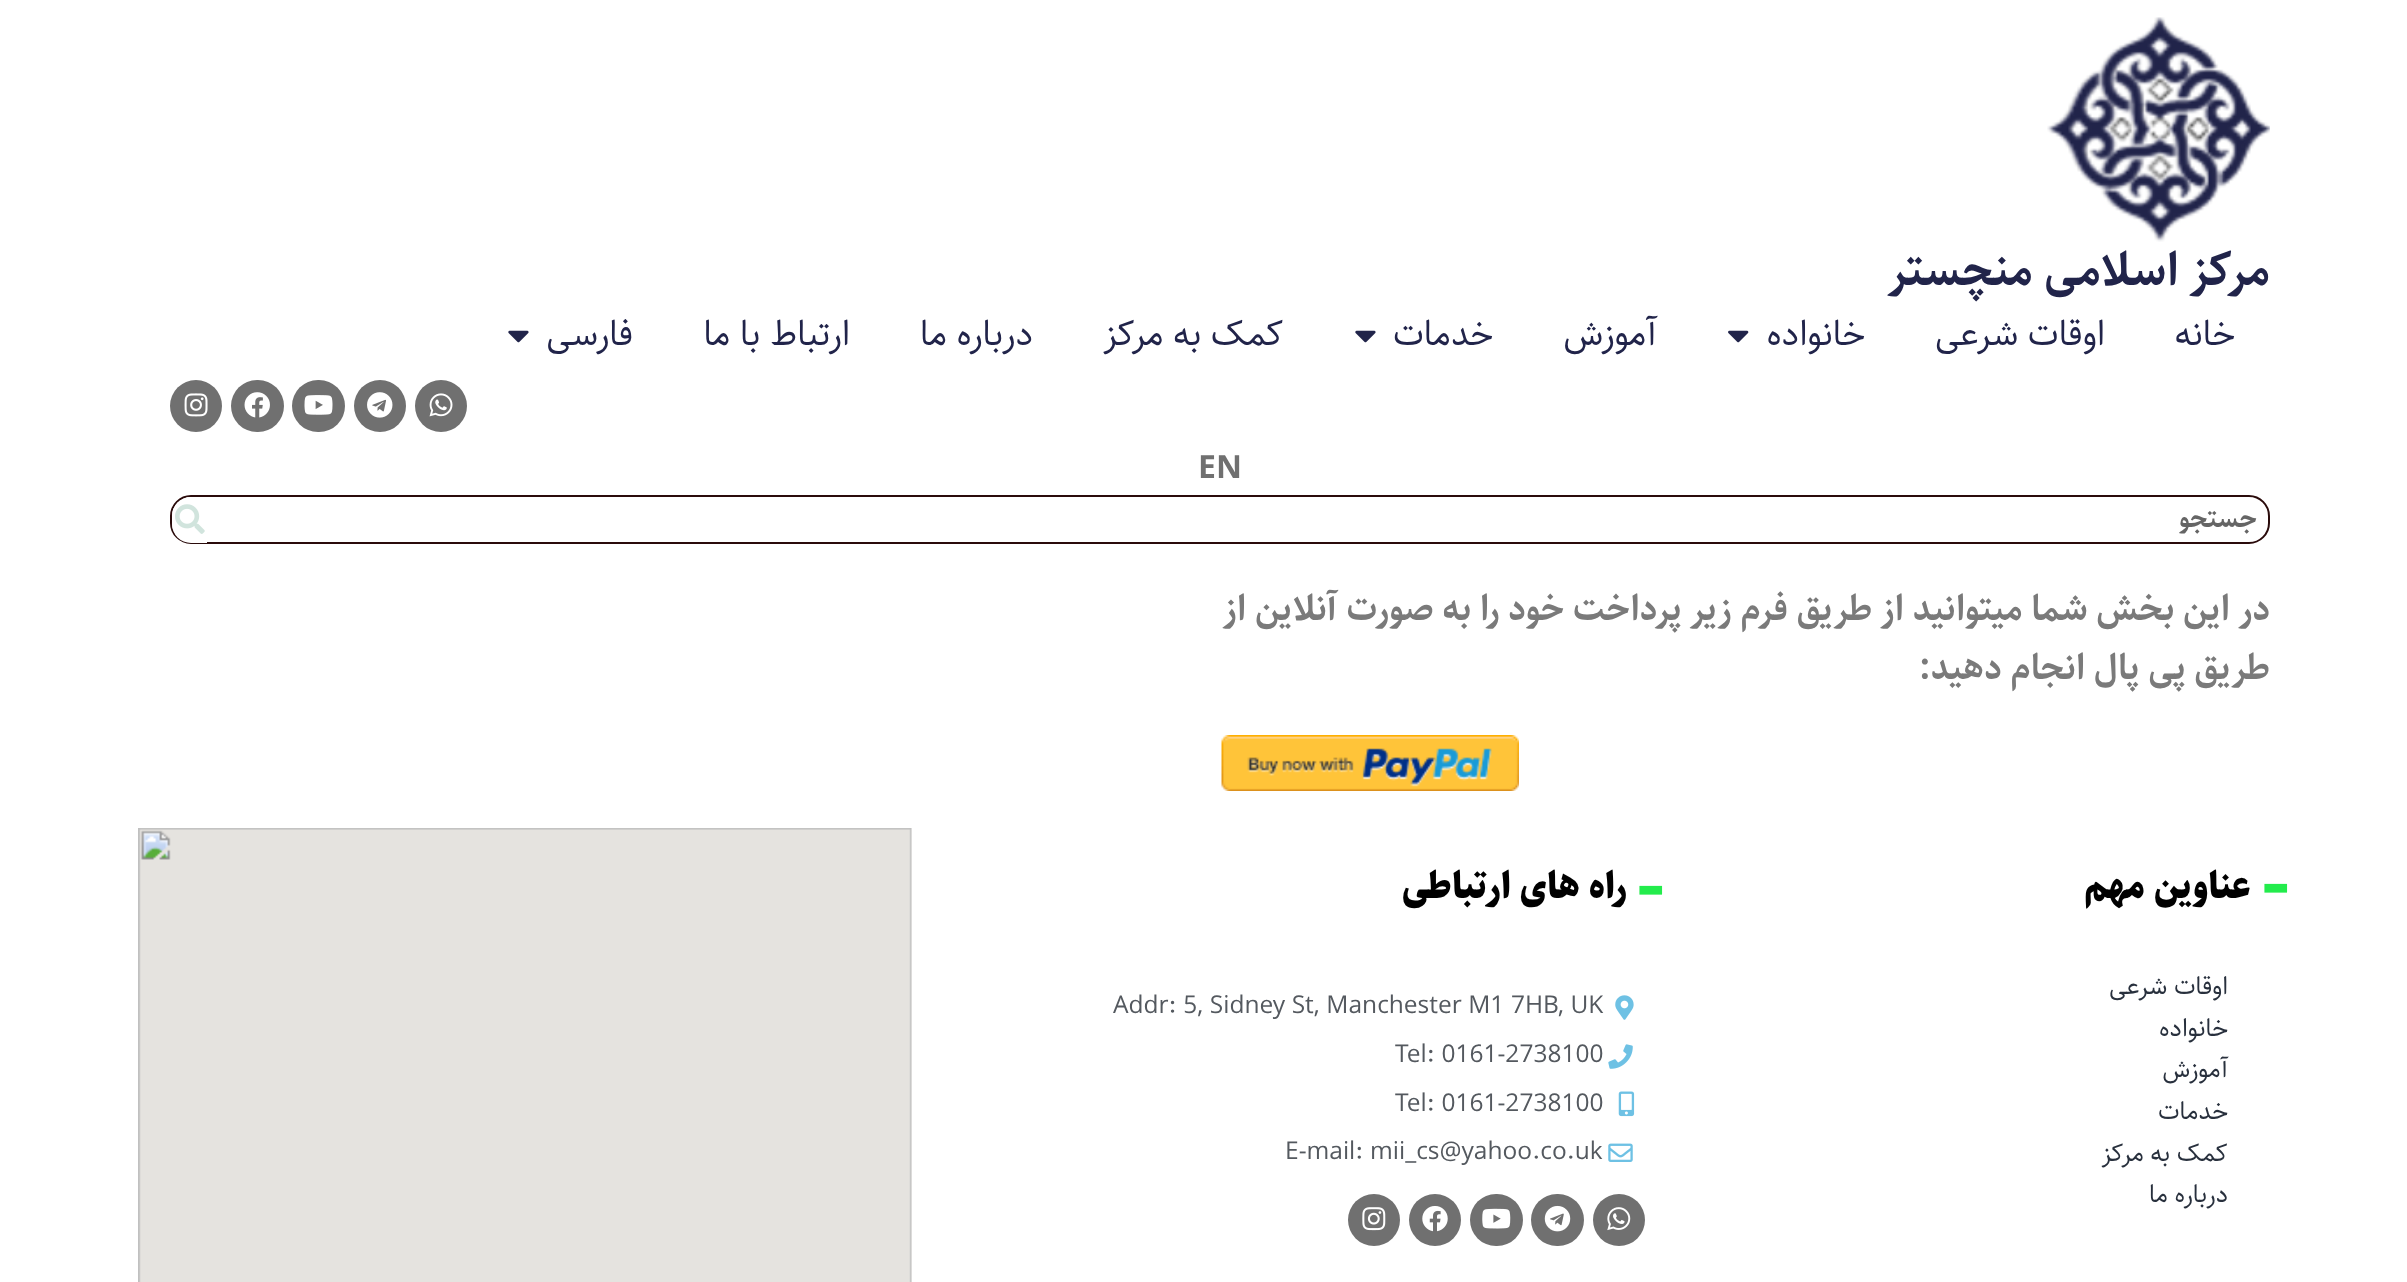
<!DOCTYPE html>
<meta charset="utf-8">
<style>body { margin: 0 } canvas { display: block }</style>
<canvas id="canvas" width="2407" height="1282"></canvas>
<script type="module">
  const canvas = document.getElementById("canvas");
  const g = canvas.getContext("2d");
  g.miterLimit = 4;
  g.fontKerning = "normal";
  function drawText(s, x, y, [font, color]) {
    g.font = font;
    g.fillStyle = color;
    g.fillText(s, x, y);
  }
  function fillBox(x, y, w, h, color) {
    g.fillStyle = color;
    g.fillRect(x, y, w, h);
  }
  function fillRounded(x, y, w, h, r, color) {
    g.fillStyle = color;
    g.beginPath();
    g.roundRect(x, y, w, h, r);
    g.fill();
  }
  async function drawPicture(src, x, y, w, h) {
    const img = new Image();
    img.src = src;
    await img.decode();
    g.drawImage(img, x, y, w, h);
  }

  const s1 = ["bold 45.5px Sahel", "#21244A"];
  const s2 = ["35px Sahel", "#21244A"];
  const s3 = ["bold 32px Sahel", "#707070"];
  const s4 = ["bold 26px Sahel", "#656565"];
  const s5 = ["bold 35px Sahel", "#7A7A7A"];
  const s6 = ["bold 84px 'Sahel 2'", "#23EC4C"];
  const s7 = ["900 35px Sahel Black", "#000000"];
  const s8 = ["24.5px Sahel", "#28303D"];
  const s9 = ["24.5px Sahel", "#54595F"];

  fillBox(0, 0, 2407, 1282, "#FFFFFF");
  await drawPicture("pic1.png", 2047, 17, 223, 225);
  g.direction = "rtl";
  drawText("مرکز اسلامی منچستر", 2270, 285, s1);
  drawText("خانه", 2235, 345, s2);
  drawText("اوقات شرعی", 2105, 345, s2);
  drawText("خانواده", 1865, 345, s2);
  await drawPicture("pic2.png", 1728, 330, 21, 13);
  drawText("آموزش", 1657, 345, s2);
  drawText("خدمات", 1493, 345, s2);
  await drawPicture("pic3.png", 1355, 330, 21, 13);
  drawText("کمک به مرکز", 1284, 345, s2);
  drawText("درباره ما", 1033, 345, s2);
  drawText("ارتباط با ما", 850, 345, s2);
  drawText("فارسی", 633, 345, s2);
  await drawPicture("pic3.png", 508, 330, 21, 13);
  g.fillStyle = "#707070";
  g.beginPath();
  g.arc(441, 406, 26, 0, Math.PI * 2);
  g.fill();
  await drawPicture("pic4.png", 429, 393, 24, 24);
  g.beginPath();
  g.arc(380, 406, 26, 0, Math.PI * 2);
  g.fill();
  await drawPicture("pic5.png", 367, 392, 26, 26);
  fillRounded(292, 380, 53, 52, 26, "#707070");
  await drawPicture("pic6.png", 304, 395, 29, 20);
  fillRounded(231, 380, 53, 52, 26, "#707070");
  await drawPicture("pic7.png", 244, 392, 26, 26);
  g.beginPath();
  g.arc(196, 406, 26, 0, Math.PI * 2);
  g.fill();
  await drawPicture("pic8.png", 184, 393, 24, 24);
  g.direction = "ltr";
  drawText("EN", 1198, 478, s3);
  g.beginPath();
  g.roundRect(171, 496, 2098, 47, 20);
  g.strokeStyle = "#2A0B0B";
  g.lineWidth = 2;
  g.stroke();
  g.direction = "rtl";
  drawText("جستجو", 2257, 527, s4);
  g.fillStyle = "#FFFFFF";
  g.beginPath();
  g.roundRect(172, 497, 35, 46, [19, 0, 0, 19]);
  g.fill();
  await drawPicture("pic9.png", 175, 504, 30, 30);
  drawText("در این بخش شما میتوانید از طریق فرم زیر پرداخت خود را به صورت آنلاین از", 2270, 620, s5);
  drawText("طریق پی پال انجام دهید:", 2270, 679, s5);
  await drawPicture("pic10.png", 1221, 735, 298, 56);
  g.direction = "ltr";
  drawText("-", 2261, 912, s6);
  g.direction = "rtl";
  drawText("عناوین مهم", 2251, 898, s7);
  drawText("اوقات شرعی", 2228, 994, s8);
  drawText("خانواده", 2228, 1036, s8);
  drawText("آموزش", 2228, 1077, s8);
  drawText("خدمات", 2228, 1119, s8);
  drawText("کمک به مرکز", 2228, 1161, s8);
  drawText("درباره ما", 2228, 1202, s8);
  g.direction = "ltr";
  drawText("-", 1636, 914, s6);
  g.direction = "rtl";
  drawText("راه های ارتباطی", 1627, 898, s7);
  await drawPicture("pic11.png", 1615, 995, 19, 25);
  g.direction = "ltr";
  drawText("Addr: 5, Sidney St, Manchester M1 7HB, UK", 1113, 1013, s9);
  await drawPicture("pic12.png", 1608, 1044, 25, 25);
  drawText("Tel: 0161-2738100", 1395, 1062, s9);
  await drawPicture("pic13.png", 1618, 1091, 17, 26);
  drawText("Tel: 0161-2738100", 1395, 1111, s9);
  await drawPicture("pic14.png", 1608, 1143, 25, 19);
  drawText("E-mail: mii_cs@yahoo.co.uk", 1285, 1159, s9);
  g.fillStyle = "#707070";
  g.beginPath();
  g.arc(1619, 1220, 26, 0, Math.PI * 2);
  g.fill();
  await drawPicture("pic15.png", 1607, 1207, 24, 24);
  fillRounded(1531, 1194, 53, 52, 26, "#707070");
  await drawPicture("pic16.png", 1544, 1205, 27, 27);
  fillRounded(1470, 1194, 53, 52, 26, "#707070");
  await drawPicture("pic17.png", 1482, 1208, 29, 21);
  g.beginPath();
  g.arc(1435, 1220, 26, 0, Math.PI * 2);
  g.fill();
  await drawPicture("pic18.png", 1422, 1206, 26, 26);
  g.beginPath();
  g.arc(1374, 1220, 26, 0, Math.PI * 2);
  g.fill();
  await drawPicture("pic19.png", 1362, 1207, 24, 24);
  await drawPicture("pic20.png", 138, 828, 774, 454);
</script>
